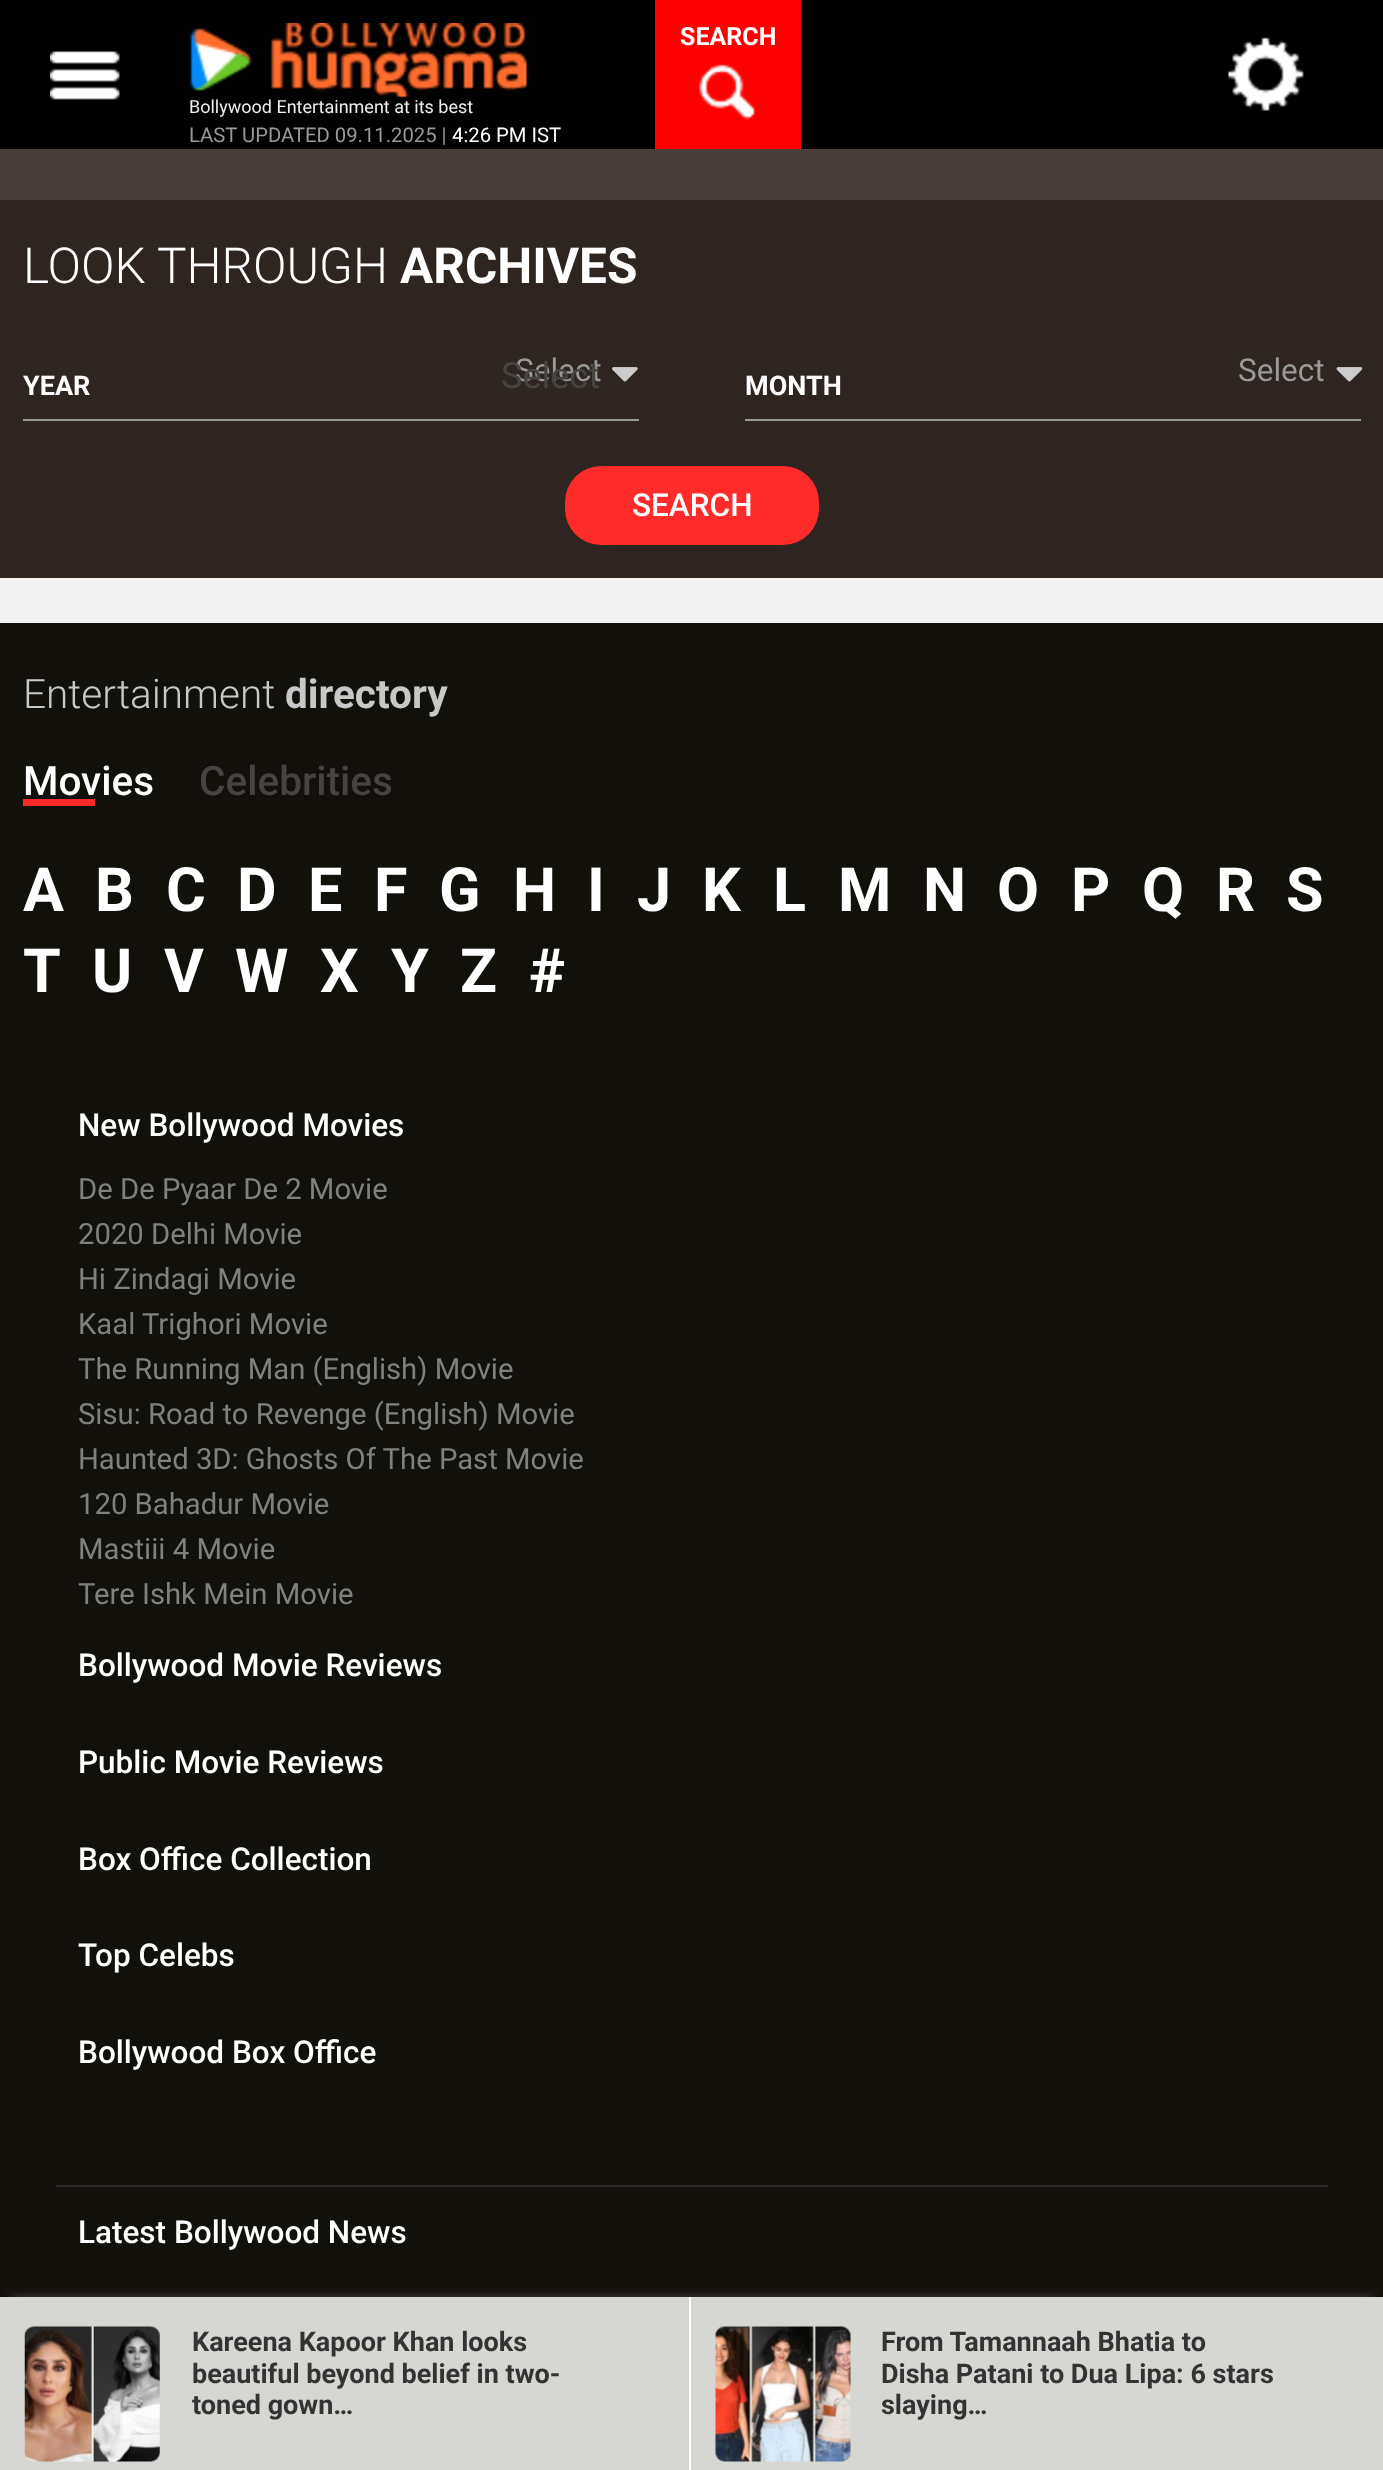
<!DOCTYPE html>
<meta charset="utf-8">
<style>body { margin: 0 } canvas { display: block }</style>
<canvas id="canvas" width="1383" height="2470"></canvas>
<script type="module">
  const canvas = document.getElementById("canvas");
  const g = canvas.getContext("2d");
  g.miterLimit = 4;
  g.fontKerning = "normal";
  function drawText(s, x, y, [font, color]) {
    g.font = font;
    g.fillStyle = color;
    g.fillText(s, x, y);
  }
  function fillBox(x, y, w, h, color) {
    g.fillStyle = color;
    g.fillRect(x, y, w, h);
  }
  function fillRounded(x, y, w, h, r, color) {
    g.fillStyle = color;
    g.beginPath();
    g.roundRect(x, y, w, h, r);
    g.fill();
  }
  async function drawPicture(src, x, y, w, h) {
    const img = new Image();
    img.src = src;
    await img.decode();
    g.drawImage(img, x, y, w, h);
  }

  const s1 = ["bold 25px Roboto", "#FFFFFF"];
  const s2 = ["18px Roboto", "#EEEEEE"];
  const s3 = ["20.25px Roboto", "#999999"];
  const s4 = ["20.25px Roboto", "#FFFFFF"];
  const s5 = ["300 49.5px Roboto", "#FFFFFF"];
  const s6 = ["bold 49.5px Roboto", "#FFFFFF"];
  const s7 = ["bold 27px Roboto", "#FFFFFF"];
  const s8 = ["31.5px Roboto", "#999999"];
  const s9 = ["36px Roboto", "#464440"];
  const s10 = ["500 31.5px Roboto", "#FFFFFF"];
  const s11 = ["300 40.5px Roboto", "#C8C8C8"];
  const s12 = ["bold 40.5px Roboto", "#C8C8C8"];
  const s13 = ["500 40.5px Roboto", "#FFFFFF"];
  const s14 = ["500 40.5px Roboto", "#464440"];
  const s15 = ["bold 61px Roboto", "#FFFFFF"];
  const s16 = ["29.25px Roboto", "#808080"];
  const s17 = ["bold 27px Roboto", "#333333"];

  fillBox(0, 0, 1383, 2470, "#12100B");
  fillBox(0, 0, 1383, 149, "#000000");
  await drawPicture("pic1.png", 50, 51, 70, 49);
  fillBox(655, 0, 146, 149, "#FF0000");
  drawText("SEARCH", 680, 45, s1);
  await drawPicture("pic2.png", 699, 64, 57, 56);
  await drawPicture("pic3.png", 1228, 37, 76, 74);
  await drawPicture("pic4.png", 190, 23, 337, 75);
  drawText("Bollywood Entertainment at its best", 189, 113, s2);
  drawText("LAST UPDATED 09.11.2025 |", 189, 142, s3);
  drawText("4:26 PM IST", 452, 142, s4);
  fillBox(0, 578, 1383, 45, "#F2F2F2");
  fillBox(0, 149, 1383, 51, "#473E3B");
  fillBox(0, 200, 1383, 378, "#2E2420");
  drawText("LOOK THROUGH", 23, 283, s5);
  drawText("ARCHIVES", 400, 283, s6);
  fillBox(23, 419, 616, 2, "#999999");
  drawText("YEAR", 23, 395, s7);
  drawText("Select", 515, 381, s8);
  await drawPicture("pic5.png", 612, 367, 26, 15);
  drawText("Select", 501, 388, s9);
  fillBox(745, 419, 616, 2, "#999999");
  drawText("Select", 1238, 381, s8);
  await drawPicture("pic6.png", 1336, 367, 27, 15);
  drawText("MONTH", 745, 395, s7);
  fillRounded(565, 466, 254, 79, 36, "#FF2B2B");
  drawText("SEARCH", 632, 516, s10);
  drawText("Entertainment", 23, 708, s11);
  drawText("directory", 285, 708, s12);
  drawText("Movies", 23, 795, s13);
  fillBox(23, 799, 72, 7, "#FF2B2B");
  drawText("Celebrities", 199, 795, s14);
  drawText("A", 23, 911, s15);
  drawText("B", 95, 911, s15);
  drawText("C", 166, 911, s15);
  drawText("D", 237, 911, s15);
  drawText("E", 308, 911, s15);
  drawText("F", 374, 911, s15);
  drawText("G", 439, 911, s15);
  drawText("H", 513, 911, s15);
  drawText("I", 587, 911, s15);
  drawText("J", 637, 911, s15);
  drawText("K", 702, 911, s15);
  drawText("L", 773, 911, s15);
  drawText("M", 838, 911, s15);
  drawText("N", 923, 911, s15);
  drawText("O", 997, 911, s15);
  drawText("P", 1071, 911, s15);
  drawText("Q", 1142, 911, s15);
  drawText("R", 1216, 911, s15);
  drawText("S", 1286, 911, s15);
  drawText("T", 23, 992, s15);
  drawText("U", 92, 992, s15);
  drawText("V", 164, 992, s15);
  drawText("W", 235, 992, s15);
  drawText("X", 320, 992, s15);
  drawText("Y", 391, 992, s15);
  drawText("Z", 460, 992, s15);
  drawText("#", 529, 992, s15);
  fillBox(56, 2185, 1272, 2, "#2C2B29");
  drawText("New Bollywood Movies", 78, 1136, s10);
  drawText("De De Pyaar De 2 Movie", 78, 1199, s16);
  drawText("2020 Delhi Movie", 78, 1244, s16);
  drawText("Hi Zindagi Movie", 78, 1289, s16);
  drawText("Kaal Trighori Movie", 78, 1334, s16);
  drawText("The Running Man (English) Movie", 78, 1379, s16);
  drawText("Sisu: Road to Revenge (English) Movie", 78, 1424, s16);
  drawText("Haunted 3D: Ghosts Of The Past Movie", 78, 1469, s16);
  drawText("120 Bahadur Movie", 78, 1514, s16);
  drawText("Mastiii 4 Movie", 78, 1559, s16);
  drawText("Tere Ishk Mein Movie", 78, 1604, s16);
  drawText("Bollywood Movie Reviews", 78, 1676, s10);
  drawText("Public Movie Reviews", 78, 1773, s10);
  drawText("Box Office Collection", 78, 1870, s10);
  drawText("Top Celebs", 78, 1966, s10);
  drawText("Bollywood Box Office", 78, 2063, s10);
  drawText("Latest Bollywood News", 78, 2243, s10);
  g.fillStyle = "rgba(153, 153, 153, 0.4)";
  g.filter = "blur(5.5px)";
  g.beginPath();
  g.rect(11, 2297, 1362, 151);
  g.fill();
  g.filter = "none";
  fillBox(0, 2297, 1383, 173, "#D6D6D3");
  await drawPicture("pic7.png", 24, 2326, 136, 136);
  drawText("Kareena Kapoor Khan looks", 192, 2351, s17);
  drawText("beautiful beyond belief in two-", 192, 2383, s17);
  drawText("toned gown…", 192, 2414, s17);
  fillBox(689, 2297, 2, 173, "#FFFFFF");
  await drawPicture("pic8.png", 715, 2326, 136, 136);
  drawText("From Tamannaah Bhatia to", 881, 2351, s17);
  drawText("Disha Patani to Dua Lipa: 6 stars", 881, 2383, s17);
  drawText("slaying…", 881, 2414, s17);
</script>
